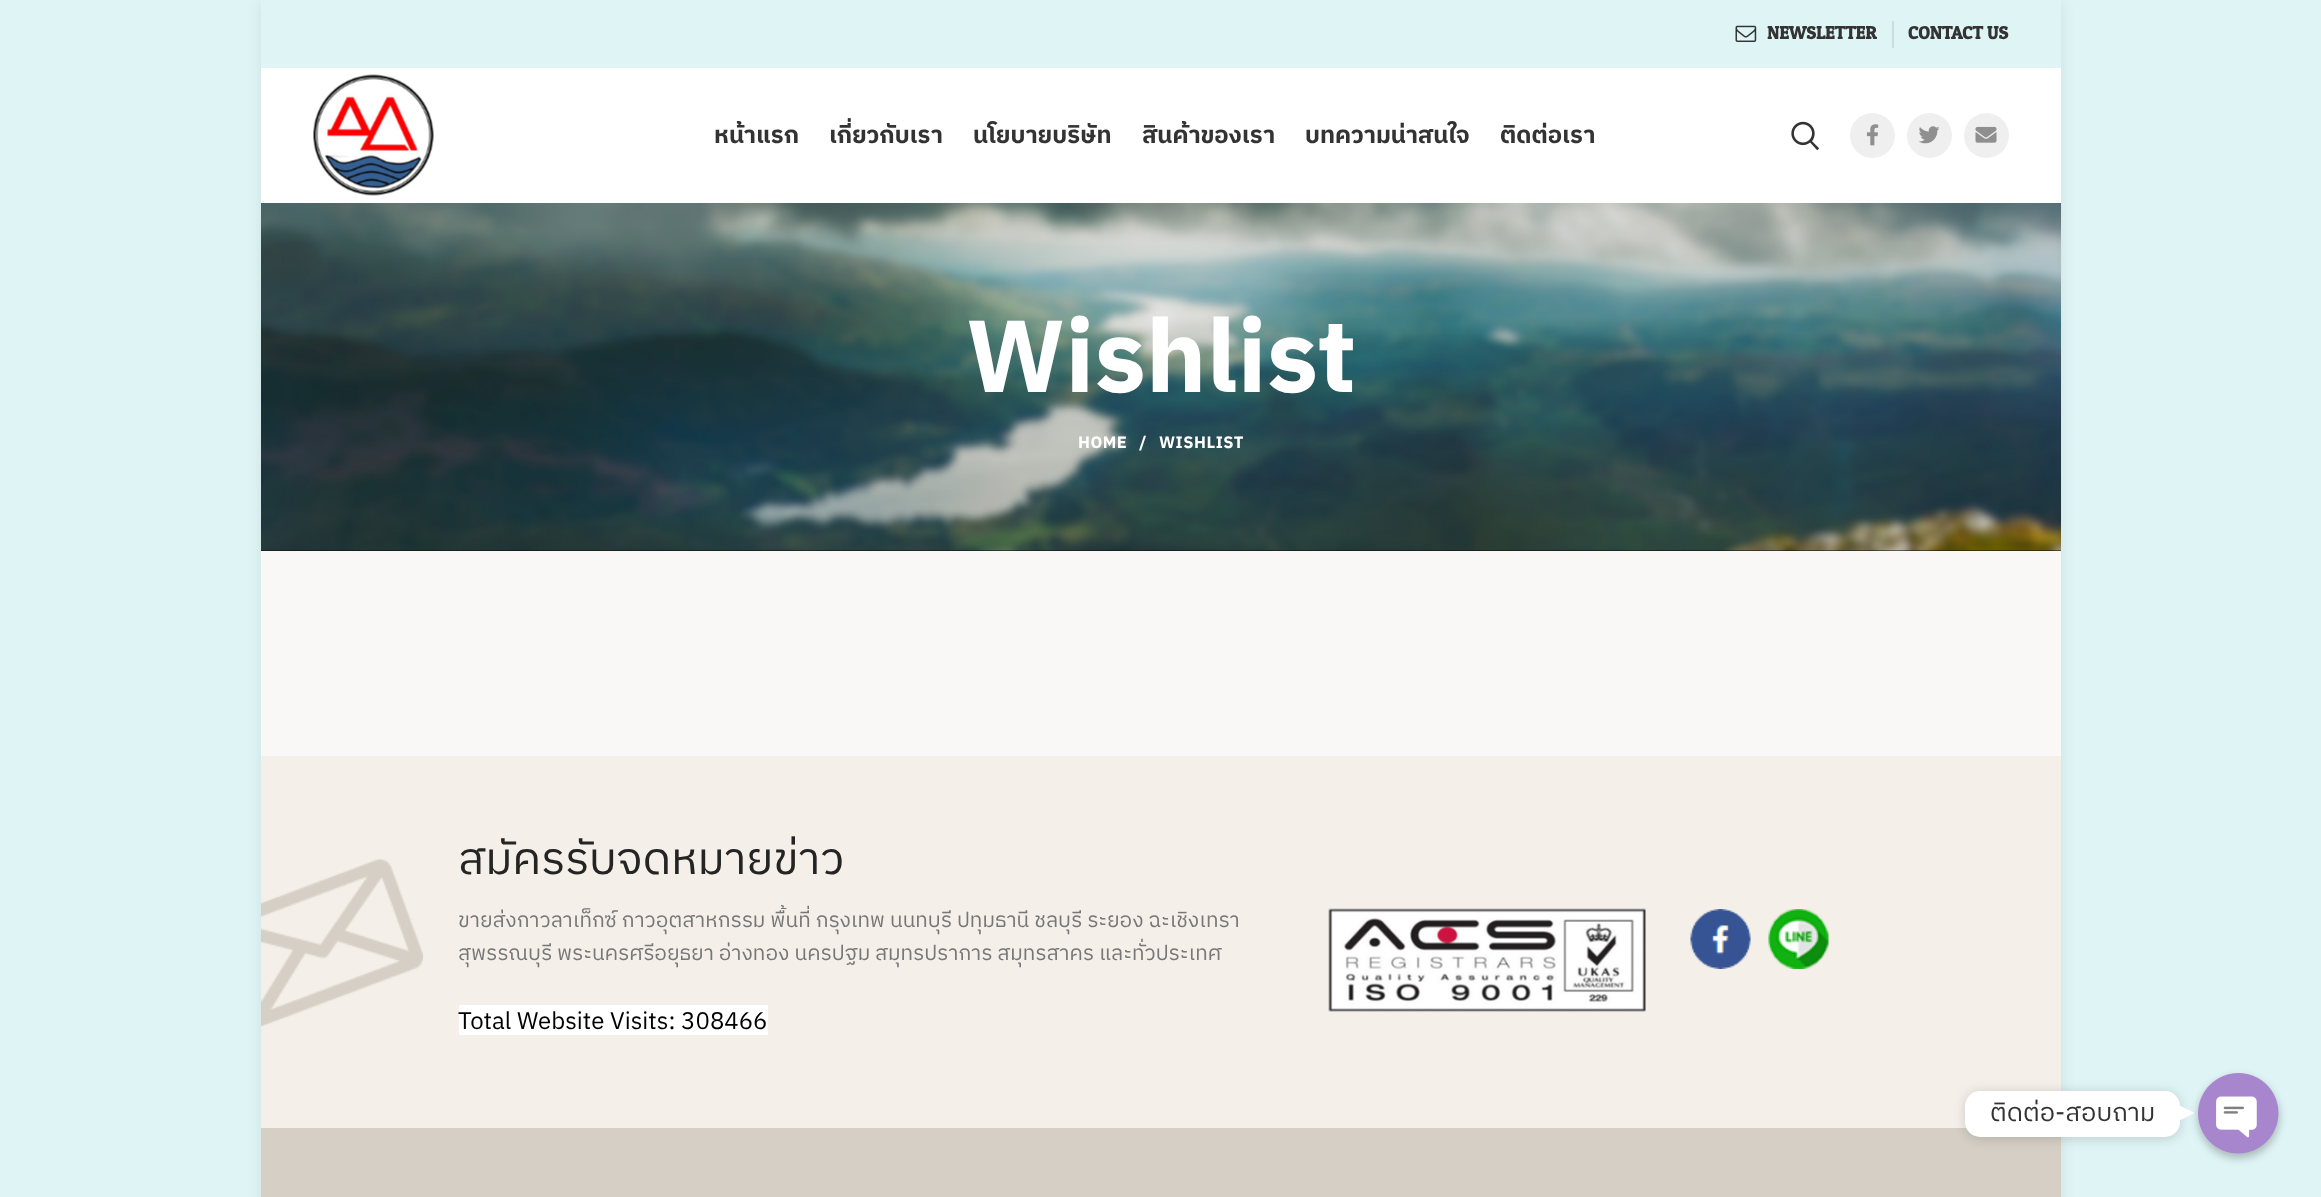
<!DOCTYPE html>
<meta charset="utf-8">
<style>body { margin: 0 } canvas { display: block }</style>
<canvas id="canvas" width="2321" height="1197"></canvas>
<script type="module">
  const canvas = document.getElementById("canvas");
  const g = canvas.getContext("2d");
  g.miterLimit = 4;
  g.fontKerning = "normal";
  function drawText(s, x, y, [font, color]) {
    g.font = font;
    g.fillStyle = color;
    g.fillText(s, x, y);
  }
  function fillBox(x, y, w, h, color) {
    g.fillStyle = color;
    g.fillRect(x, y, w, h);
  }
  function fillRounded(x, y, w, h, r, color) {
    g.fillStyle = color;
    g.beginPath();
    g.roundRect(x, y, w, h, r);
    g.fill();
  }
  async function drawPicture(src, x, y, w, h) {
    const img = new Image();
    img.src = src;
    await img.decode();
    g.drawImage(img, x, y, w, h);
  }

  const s1 = ["bold 18px Patua One", "#333333"];
  const s2 = ["bold 24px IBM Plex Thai", "#333333"];
  const s3 = ["bold 102px IBM Plex Thai", "#FFFFFF"];
  const s4 = ["bold 16.5px IBM Plex Thai", "#FFFFFF"];
  const s5 = ["45px IBM Plex Thai", "#242424"];
  const s6 = ["21px IBM Plex Thai", "#777777"];
  const s7 = ["24px IBM Plex Thai", "#000000"];
  const s8 = ["25.5px IBM Plex Thai", "#333333"];

  fillBox(0, 0, 2321, 1197, "#DFF4F5");
  g.fillStyle = "rgba(0, 0, 0, 0.08)";
  g.filter = "blur(7px)";
  g.beginPath();
  g.rect(261, 2, 1800, 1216);
  g.fill();
  g.filter = "none";
  fillBox(261, 0, 1800, 68, "#DFF4F5");
  await drawPicture("pic1.png", 1735, 25, 22, 17);
  drawText("NEWSLETTER", 1767, 39, s1);
  fillBox(1892, 21, 2, 27, "#CCDDDE");
  drawText("CONTACT US", 1908, 39, s1);
  fillBox(261, 68, 1800, 135, "#FFFFFF");
  await drawPicture("pic2.png", 313, 74, 121, 122);
  drawText("หน้าแรก", 714, 143, s2);
  drawText("เกี่ยวกับเรา", 829, 143, s2);
  drawText("นโยบายบริษัท", 973, 143, s2);
  drawText("สินค้าของเรา", 1142, 143, s2);
  drawText("บทความน่าสนใจ", 1305, 143, s2);
  drawText("ติดต่อเรา", 1500, 143, s2);
  await drawPicture("pic3.png", 1791, 121, 29, 30);
  g.fillStyle = "#EFEFEF";
  g.beginPath();
  g.arc(1872.5, 135.5, 22.5, 0, Math.PI * 2);
  g.fill();
  await drawPicture("pic4.png", 1866, 124, 13, 22);
  g.beginPath();
  g.arc(1929.5, 135.5, 22.5, 0, Math.PI * 2);
  g.fill();
  await drawPicture("pic5.png", 1918, 126, 22, 18);
  g.beginPath();
  g.arc(1986.5, 135.5, 22.5, 0, Math.PI * 2);
  g.fill();
  await drawPicture("pic6.png", 1975, 126, 22, 17);
  fillBox(261, 551, 1800, 205, "#FAF8F6");
  fillBox(261, 550, 1800, 1, "#0A0A0A");
  await drawPicture("pic7.png", 261, 203, 1800, 348);
  drawText("Wishlist", 966, 392, s3);
  g.letterSpacing = "0.5px";
  drawText("HOME", 1078, 448, s4);
  drawText("/", 1139, 448, s4);
  drawText("WISHLIST", 1159, 448, s4);
  fillBox(261, 756, 1800, 372, "#F4EFE9");
  await drawPicture("pic8.png", 261, 859, 162, 167);
  g.letterSpacing = "0px";
  drawText("สมัครรับจดหมายข่าว", 458, 874, s5);
  drawText("ขายส่งกาวลาเท็กซ์ กาวอุตสาหกรรม พื้นที่ กรุงเทพ นนทบุรี ปทุมธานี ชลบุรี ระยอง ฉะเชิงเทรา", 458, 927, s6);
  drawText("สุพรรณบุรี พระนครศรีอยุธยา อ่างทอง นครปฐม สมุทรปราการ สมุทรสาคร และทั่วประเทศ", 458, 960, s6);
  fillBox(459, 1005, 309, 30, "#FFFFFF");
  drawText("Total Website Visits: 308466", 458, 1029, s7);
  await drawPicture("pic9.png", 1328, 908, 318, 104);
  await drawPicture("pic10.png", 1690, 909, 61, 60);
  await drawPicture("pic11.png", 1768, 909, 61, 60);
  fillBox(261, 1128, 1800, 69, "#D5CFC5");
  g.fillStyle = "rgba(0, 0, 0, 0.25)";
  g.filter = "blur(4.5px)";
  g.beginPath();
  g.roundRect(2198, 1077, 81, 81, 40.5);
  g.fill();
  g.filter = "none";
  await drawPicture("pic12.png", 2198, 1073, 81, 81);
  g.fillStyle = "rgba(0, 0, 0, 0.15)";
  g.filter = "blur(6px)";
  g.beginPath();
  g.roundRect(1965, 1092, 215, 47, 15);
  g.fill();
  g.filter = "none";
  fillRounded(1965, 1091, 215, 46, 15, "#FFFFFF");
  drawText("ติดต่อ-สอบถาม", 1990, 1121, s8);
  g.fillStyle = "#FFFFFF";
  g.beginPath();
  g.moveTo(2179.5, 1120.5);
  g.lineTo(2179.5, 1105.5);
  g.lineTo(2194.5, 1113);
  g.closePath();
  g.fill();
</script>
